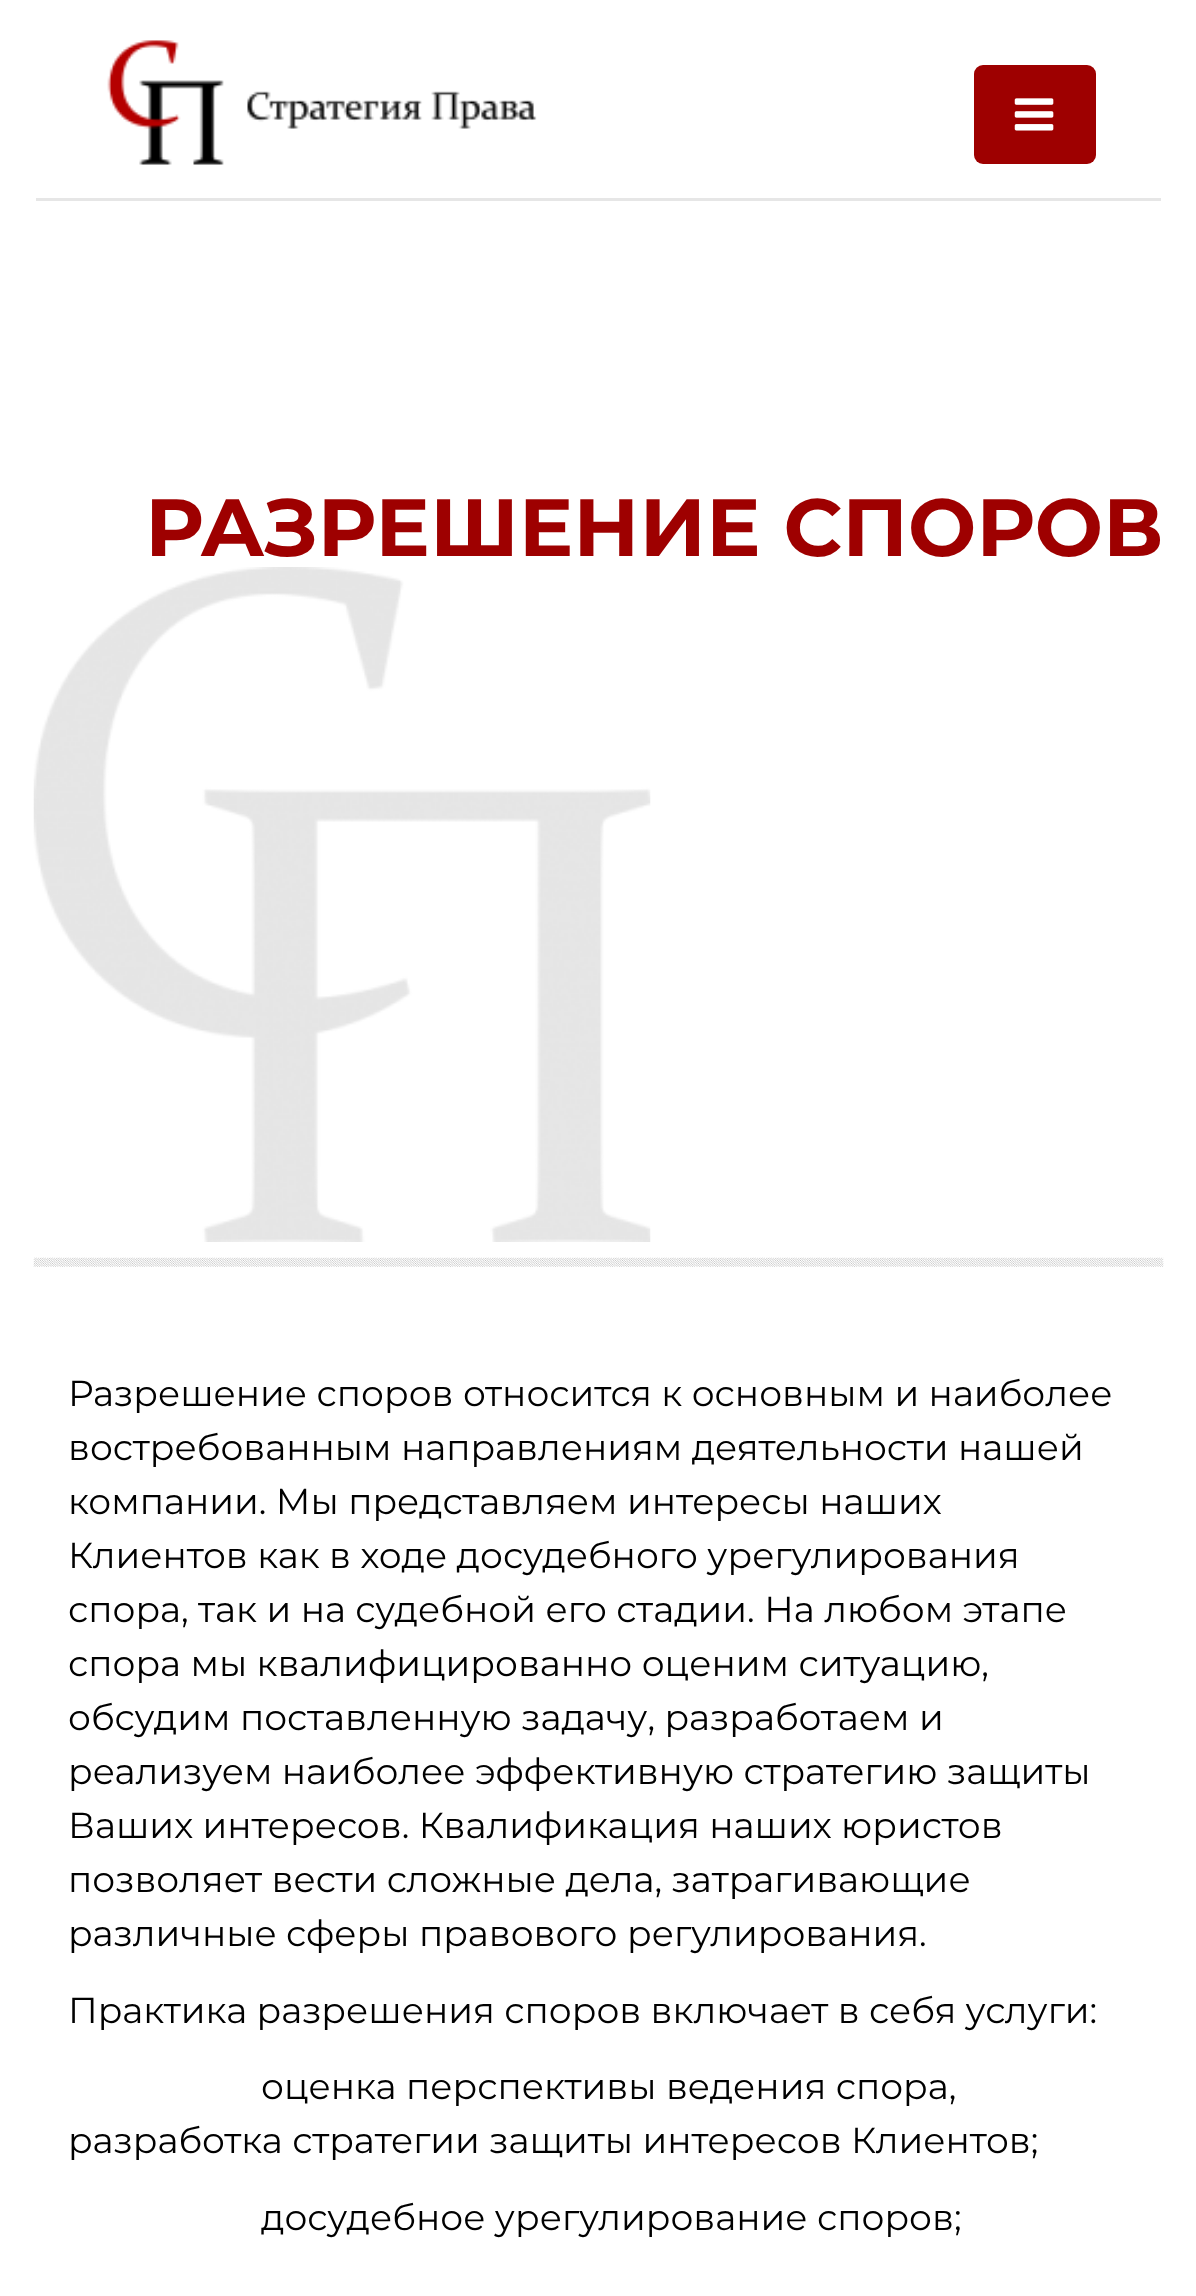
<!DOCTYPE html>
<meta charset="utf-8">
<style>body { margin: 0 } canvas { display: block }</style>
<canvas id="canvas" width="1196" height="2296"></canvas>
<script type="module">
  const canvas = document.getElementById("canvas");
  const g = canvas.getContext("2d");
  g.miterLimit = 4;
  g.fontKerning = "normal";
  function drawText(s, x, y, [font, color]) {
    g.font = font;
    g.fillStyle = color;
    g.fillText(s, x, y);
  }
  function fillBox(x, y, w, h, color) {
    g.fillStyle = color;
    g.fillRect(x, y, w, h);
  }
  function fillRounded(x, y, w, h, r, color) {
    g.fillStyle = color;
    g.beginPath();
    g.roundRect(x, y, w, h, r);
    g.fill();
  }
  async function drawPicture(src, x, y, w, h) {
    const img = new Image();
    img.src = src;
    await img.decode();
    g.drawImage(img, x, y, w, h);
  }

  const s1 = ["bold 81px Montserrat", "#9E0000"];
  const s2 = ["36px Montserrat", "#000000"];

  fillBox(0, 0, 1196, 2296, "#FFFFFF");
  await drawPicture("pic1.png", 107, 40, 430, 125);
  fillRounded(974, 65, 122, 99, 9, "#9E0000");
  await drawPicture("pic2.png", 1014, 98, 40, 33);
  fillBox(36, 198, 1125, 3, "#E6E6E6");
  drawText("РАЗРЕШЕНИЕ СПОРОВ", 145, 556, s1);
  await drawPicture("pic3.png", 33, 567, 618, 675);
  await drawPicture("pic4.png", 33, 1257, 1131, 10);
  drawText("Разрешение споров относится к основным и наиболее", 68, 1406, s2);
  drawText("востребованным направлениям деятельности нашей", 68, 1460, s2);
  drawText("компании. Мы представляем интересы наших", 68, 1514, s2);
  drawText("Клиентов как в ходе досудебного урегулирования", 68, 1568, s2);
  drawText("спора, так и на судебной его стадии. На любом этапе", 68, 1622, s2);
  drawText("спора мы квалифицированно оценим ситуацию,", 68, 1676, s2);
  drawText("обсудим поставленную задачу, разработаем и", 68, 1730, s2);
  drawText("реализуем наиболее эффективную стратегию защиты", 68, 1784, s2);
  drawText("Ваших интересов. Квалификация наших юристов", 68, 1838, s2);
  drawText("позволяет вести сложные дела, затрагивающие", 68, 1892, s2);
  drawText("различные сферы правового регулирования.", 68, 1946, s2);
  drawText("Практика разрешения споров включает в себя услуги:", 68, 2023, s2);
  drawText("оценка перспективы ведения спора,", 261, 2099, s2);
  drawText("разработка стратегии защиты интересов Клиентов;", 68, 2153, s2);
  drawText("досудебное урегулирование споров;", 261, 2230, s2);
</script>
